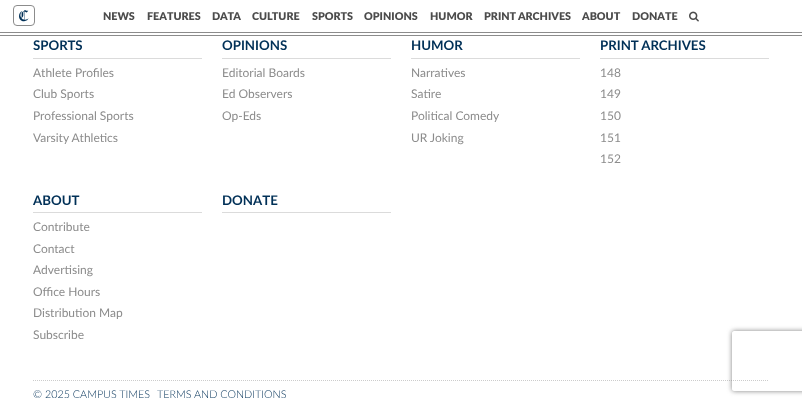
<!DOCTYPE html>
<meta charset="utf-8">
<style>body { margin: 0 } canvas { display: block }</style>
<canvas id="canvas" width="802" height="405"></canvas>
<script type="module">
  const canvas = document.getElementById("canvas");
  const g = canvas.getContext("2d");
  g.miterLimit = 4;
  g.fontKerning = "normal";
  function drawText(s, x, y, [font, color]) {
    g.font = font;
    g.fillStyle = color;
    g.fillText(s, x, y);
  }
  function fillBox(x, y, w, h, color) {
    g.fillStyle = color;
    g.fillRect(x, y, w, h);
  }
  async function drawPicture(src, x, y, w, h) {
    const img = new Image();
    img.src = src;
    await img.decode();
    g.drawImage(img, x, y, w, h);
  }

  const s1 = ["17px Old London", "#003057"];
  const s2 = ["900 10.75px Lato", "#4C4C4C"];
  const s3 = ["bold 13.25px Lato", "#003057"];
  const s4 = ["12px Lato", "#8C8C8C"];
  const s5 = ["300 10.75px Lato", "#003057"];

  fillBox(0, 0, 802, 405, "#FFFFFF");
  fillBox(0, 32, 802, 1, "#8C8C8C");
  g.beginPath();
  g.roundRect(13.5, 5.5, 21, 20, 3.5);
  g.strokeStyle = "#8C8C8C";
  g.stroke();
  drawText("C", 19, 21, s1);
  drawText("NEWS", 103, 20, s2);
  drawText("FEATURES", 147, 20, s2);
  drawText("DATA", 212, 20, s2);
  drawText("CULTURE", 252, 20, s2);
  drawText("SPORTS", 312, 20, s2);
  drawText("OPINIONS", 364, 20, s2);
  drawText("HUMOR", 430, 20, s2);
  drawText("PRINT ARCHIVES", 484, 20, s2);
  drawText("ABOUT", 582, 20, s2);
  drawText("DONATE", 632, 20, s2);
  await drawPicture("pic1.png", 689, 11, 10, 11);
  fillBox(0, 35, 802, 1, "#8C8C8C");
  fillBox(33, 58, 169, 1, "#DBDBDB");
  drawText("SPORTS", 33, 50, s3);
  drawText("Athlete Profiles", 33, 77, s4);
  drawText("Club Sports", 33, 98, s4);
  drawText("Professional Sports", 33, 120, s4);
  drawText("Varsity Athletics", 33, 142, s4);
  fillBox(222, 58, 169, 1, "#DBDBDB");
  drawText("OPINIONS", 222, 50, s3);
  drawText("Editorial Boards", 222, 77, s4);
  drawText("Ed Observers", 222, 98, s4);
  drawText("Op-Eds", 222, 120, s4);
  fillBox(411, 58, 169, 1, "#DBDBDB");
  drawText("HUMOR", 411, 50, s3);
  drawText("Narratives", 411, 77, s4);
  drawText("Satire", 411, 98, s4);
  drawText("Political Comedy", 411, 120, s4);
  drawText("UR Joking", 411, 142, s4);
  fillBox(600, 58, 169, 1, "#DBDBDB");
  drawText("PRINT ARCHIVES", 600, 50, s3);
  drawText("148", 600, 77, s4);
  drawText("149", 600, 98, s4);
  drawText("150", 600, 120, s4);
  drawText("151", 600, 142, s4);
  drawText("152", 600, 163, s4);
  fillBox(33, 212, 169, 1, "#DBDBDB");
  drawText("ABOUT", 33, 205, s3);
  drawText("Contribute", 33, 231, s4);
  drawText("Contact", 33, 253, s4);
  drawText("Advertising", 33, 274, s4);
  drawText("Office Hours", 33, 296, s4);
  drawText("Distribution Map", 33, 317, s4);
  drawText("Subscribe", 33, 339, s4);
  fillBox(222, 212, 169, 1, "#DBDBDB");
  drawText("DONATE", 222, 205, s3);
  g.beginPath();
  g.moveTo(33, 380.5);
  g.lineTo(769, 380.5);
  g.strokeStyle = "#CCCCCC";
  g.setLineDash([1, 1]);
  g.stroke();
  drawText("© 2025 CAMPUS TIMES", 33, 398, s5);
  drawText("TERMS AND CONDITIONS", 157, 398, s5);
  g.save();
  g.beginPath();
  g.moveTo(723, 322);
  g.lineTo(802, 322);
  g.lineTo(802, 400);
  g.lineTo(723, 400);
  g.closePath();
  g.moveTo(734, 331);
  g.lineTo(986, 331);
  g.bezierCurveTo(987, 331, 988, 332, 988, 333);
  g.lineTo(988, 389);
  g.bezierCurveTo(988, 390, 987, 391, 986, 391);
  g.lineTo(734, 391);
  g.bezierCurveTo(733, 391, 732, 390, 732, 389);
  g.lineTo(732, 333);
  g.bezierCurveTo(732, 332, 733, 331, 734, 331);
  g.closePath();
  g.clip("evenodd");
  g.fillStyle = "#808080";
  g.filter = "blur(2.5px)";
  g.beginPath();
  g.roundRect(732, 331, 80, 60, 2);
  g.fill();
  g.filter = "none";
  g.restore();
</script>
